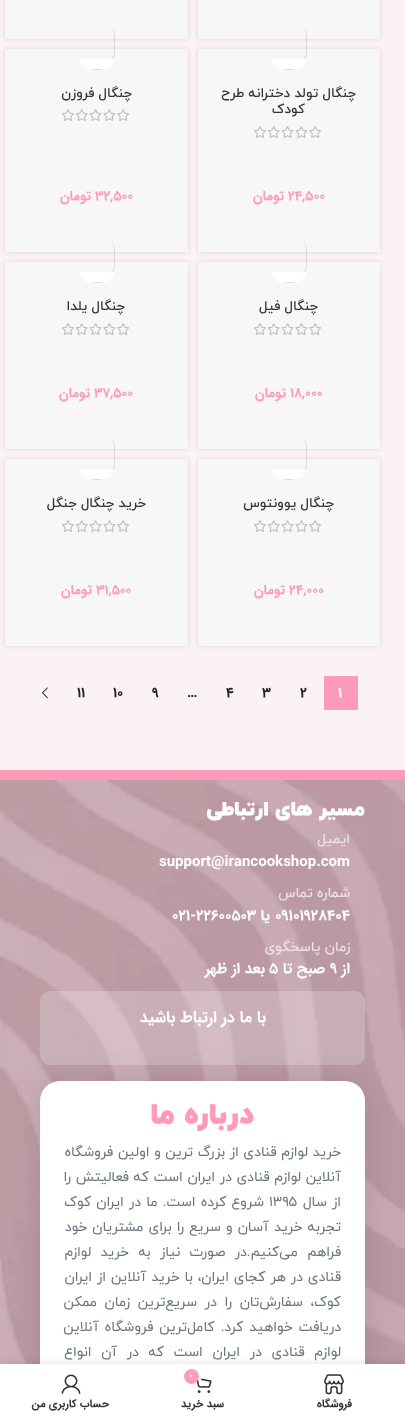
<!DOCTYPE html>
<meta charset="utf-8">
<style>body { margin: 0 } canvas { display: block }</style>
<canvas id="canvas" width="405" height="1419"></canvas>
<script type="module">
  const canvas = document.getElementById("canvas");
  const g = canvas.getContext("2d");
  g.miterLimit = 4;
  g.fontKerning = "normal";
  function drawText(s, x, y, [font, color]) {
    g.font = font;
    g.fillStyle = color;
    g.fillText(s, x, y);
  }
  function fillBox(x, y, w, h, color) {
    g.fillStyle = color;
    g.fillRect(x, y, w, h);
  }
  function fillRounded(x, y, w, h, r, color) {
    g.fillStyle = color;
    g.beginPath();
    g.roundRect(x, y, w, h, r);
    g.fill();
  }
  async function drawPicture(src, x, y, w, h) {
    const img = new Image();
    img.src = src;
    await img.decode();
    g.drawImage(img, x, y, w, h);
  }

  const s1 = ["500 13.5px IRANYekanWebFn", "#333333"];
  const s2 = ["bold 13.5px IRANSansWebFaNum", "#FF9BB9"];
  const s3 = ["bold 14px IRANSansWebFaNum", "#FFFFFF"];
  const s4 = ["bold 14px IRANSansWebFaNum", "#242424"];
  const s5 = ["900 20px IRANYekanWebFn", "#FFFFFF"];
  const s6 = ["500 14px IRANYekanWebFn", "#ECE2E4"];
  const s7 = ["bold 15px IRANSansWebFaNum", "#FFFFFF"];
  const s8 = ["bold 16px IRANSansWebFaNum", "#FFFFFF"];
  const s9 = ["900 29px IRANYekanWebFn", "#FF9BB9"];
  const s10 = ["14px IRANYekanWebFn", "#6A747E"];
  const s11 = ["bold 11px IRANSansWebFaNum", "#333333"];
  const s12 = ["9px IRANSansWebFaNum", "#FFFFFF"];

  fillBox(0, 0, 405, 1419, "#FBF2F4");
  g.fillStyle = "rgba(0, 0, 0, 0.12)";
  g.filter = "blur(2px)";
  g.beginPath();
  g.rect(198, -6, 182, 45);
  g.fill();
  g.filter = "none";
  fillBox(198, 0, 182, 39, "#F7F7F7");
  g.fillStyle = "rgba(0, 0, 0, 0.12)";
  g.filter = "blur(2px)";
  g.beginPath();
  g.rect(5, -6, 183, 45);
  g.fill();
  g.filter = "none";
  fillBox(5, 0, 183, 39, "#F7F7F7");
  g.fillStyle = "rgba(0, 0, 0, 0.12)";
  g.filter = "blur(2px)";
  g.beginPath();
  g.rect(198, 49, 182, 203);
  g.fill();
  g.filter = "none";
  fillBox(198, 49, 182, 203, "#F7F7F7");
  g.save();
  g.beginPath();
  g.moveTo(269, 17);
  g.lineTo(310, 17);
  g.lineTo(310, 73);
  g.lineTo(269, 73);
  g.closePath();
  g.moveTo(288.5, 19);
  g.bezierCurveTo(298, 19, 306, 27, 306, 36.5);
  g.lineTo(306, 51.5);
  g.bezierCurveTo(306, 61, 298, 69, 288.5, 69);
  g.bezierCurveTo(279, 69, 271, 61, 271, 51.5);
  g.lineTo(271, 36.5);
  g.bezierCurveTo(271, 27, 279, 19, 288.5, 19);
  g.closePath();
  g.clip("evenodd");
  g.fillStyle = "rgba(0, 0, 0, 0.1)";
  g.filter = "blur(0.5px)";
  g.beginPath();
  g.roundRect(272, 20, 35, 50, 17.5);
  g.fill();
  g.filter = "none";
  g.restore();
  g.fillStyle = "#FFFFFF";
  g.beginPath();
  g.roundRect(271, 59, 35, 10, [0, 0, 17.5, 17.5]);
  g.fill();
  g.direction = "rtl";
  drawText("چنگال تولد دخترانه طرح", 356, 97, s1);
  drawText("کودک", 305, 113, s1);
  await drawPicture("pic1.png", 254, 126, 67, 12);
  g.direction = "ltr";
  drawText("۲۴,۵۰۰", 288, 200, s2);
  g.direction = "rtl";
  drawText("تومان", 284, 200, s2);
  g.fillStyle = "rgba(0, 0, 0, 0.12)";
  g.filter = "blur(2px)";
  g.beginPath();
  g.rect(5, 49, 183, 203);
  g.fill();
  g.filter = "none";
  fillBox(5, 49, 183, 203, "#F7F7F7");
  g.save();
  g.beginPath();
  g.moveTo(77, 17);
  g.lineTo(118, 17);
  g.lineTo(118, 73);
  g.lineTo(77, 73);
  g.closePath();
  g.moveTo(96.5, 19);
  g.bezierCurveTo(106, 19, 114, 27, 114, 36.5);
  g.lineTo(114, 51.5);
  g.bezierCurveTo(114, 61, 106, 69, 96.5, 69);
  g.bezierCurveTo(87, 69, 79, 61, 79, 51.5);
  g.lineTo(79, 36.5);
  g.bezierCurveTo(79, 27, 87, 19, 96.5, 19);
  g.closePath();
  g.clip("evenodd");
  g.fillStyle = "rgba(0, 0, 0, 0.1)";
  g.filter = "blur(0.5px)";
  g.beginPath();
  g.roundRect(80, 20, 35, 50, 17.5);
  g.fill();
  g.filter = "none";
  g.restore();
  g.fillStyle = "#FFFFFF";
  g.beginPath();
  g.roundRect(79, 59, 35, 10, [0, 0, 17.5, 17.5]);
  g.fill();
  drawText("چنگال فروزن", 132, 97, s1);
  await drawPicture("pic1.png", 62, 109, 67, 12);
  g.direction = "ltr";
  drawText("۳۲,۵۰۰", 95, 200, s2);
  g.direction = "rtl";
  drawText("تومان", 91, 200, s2);
  g.fillStyle = "rgba(0, 0, 0, 0.12)";
  g.filter = "blur(2px)";
  g.beginPath();
  g.rect(198, 262, 182, 187);
  g.fill();
  g.filter = "none";
  fillBox(198, 262, 182, 187, "#F7F7F7");
  g.save();
  g.beginPath();
  g.moveTo(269, 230);
  g.lineTo(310, 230);
  g.lineTo(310, 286);
  g.lineTo(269, 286);
  g.closePath();
  g.moveTo(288.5, 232);
  g.bezierCurveTo(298, 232, 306, 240, 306, 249.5);
  g.lineTo(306, 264.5);
  g.bezierCurveTo(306, 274, 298, 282, 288.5, 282);
  g.bezierCurveTo(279, 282, 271, 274, 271, 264.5);
  g.lineTo(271, 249.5);
  g.bezierCurveTo(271, 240, 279, 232, 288.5, 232);
  g.closePath();
  g.clip("evenodd");
  g.fillStyle = "rgba(0, 0, 0, 0.1)";
  g.filter = "blur(0.5px)";
  g.beginPath();
  g.roundRect(272, 233, 35, 50, 17.5);
  g.fill();
  g.filter = "none";
  g.restore();
  g.fillStyle = "#FFFFFF";
  g.beginPath();
  g.roundRect(271, 272, 35, 10, [0, 0, 17.5, 17.5]);
  g.fill();
  drawText("چنگال فیل", 318, 310, s1);
  await drawPicture("pic1.png", 254, 323, 67, 12);
  g.direction = "ltr";
  drawText("۱۸,۰۰۰", 290, 397, s2);
  g.direction = "rtl";
  drawText("تومان", 286, 397, s2);
  g.fillStyle = "rgba(0, 0, 0, 0.12)";
  g.filter = "blur(2px)";
  g.beginPath();
  g.rect(5, 262, 183, 187);
  g.fill();
  g.filter = "none";
  fillBox(5, 262, 183, 187, "#F7F7F7");
  g.save();
  g.beginPath();
  g.moveTo(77, 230);
  g.lineTo(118, 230);
  g.lineTo(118, 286);
  g.lineTo(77, 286);
  g.closePath();
  g.moveTo(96.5, 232);
  g.bezierCurveTo(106, 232, 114, 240, 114, 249.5);
  g.lineTo(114, 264.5);
  g.bezierCurveTo(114, 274, 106, 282, 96.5, 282);
  g.bezierCurveTo(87, 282, 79, 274, 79, 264.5);
  g.lineTo(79, 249.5);
  g.bezierCurveTo(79, 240, 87, 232, 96.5, 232);
  g.closePath();
  g.clip("evenodd");
  g.fillStyle = "rgba(0, 0, 0, 0.1)";
  g.filter = "blur(0.5px)";
  g.beginPath();
  g.roundRect(80, 233, 35, 50, 17.5);
  g.fill();
  g.filter = "none";
  g.restore();
  g.fillStyle = "#FFFFFF";
  g.beginPath();
  g.roundRect(79, 272, 35, 10, [0, 0, 17.5, 17.5]);
  g.fill();
  drawText("چنگال یلدا", 125, 310, s1);
  await drawPicture("pic1.png", 62, 323, 67, 12);
  g.direction = "ltr";
  drawText("۳۷,۵۰۰", 94, 397, s2);
  g.direction = "rtl";
  drawText("تومان", 90, 397, s2);
  g.fillStyle = "rgba(0, 0, 0, 0.12)";
  g.filter = "blur(2px)";
  g.beginPath();
  g.rect(198, 459, 182, 187);
  g.fill();
  g.filter = "none";
  fillBox(198, 459, 182, 187, "#F7F7F7");
  g.save();
  g.beginPath();
  g.moveTo(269, 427);
  g.lineTo(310, 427);
  g.lineTo(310, 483);
  g.lineTo(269, 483);
  g.closePath();
  g.moveTo(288.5, 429);
  g.bezierCurveTo(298, 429, 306, 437, 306, 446.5);
  g.lineTo(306, 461.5);
  g.bezierCurveTo(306, 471, 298, 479, 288.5, 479);
  g.bezierCurveTo(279, 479, 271, 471, 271, 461.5);
  g.lineTo(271, 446.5);
  g.bezierCurveTo(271, 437, 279, 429, 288.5, 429);
  g.closePath();
  g.clip("evenodd");
  g.fillStyle = "rgba(0, 0, 0, 0.1)";
  g.filter = "blur(0.5px)";
  g.beginPath();
  g.roundRect(272, 430, 35, 50, 17.5);
  g.fill();
  g.filter = "none";
  g.restore();
  g.fillStyle = "#FFFFFF";
  g.beginPath();
  g.roundRect(271, 469, 35, 10, [0, 0, 17.5, 17.5]);
  g.fill();
  drawText("چنگال یوونتوس", 334, 507, s1);
  await drawPicture("pic1.png", 254, 520, 67, 12);
  g.direction = "ltr";
  drawText("۲۴,۰۰۰", 289, 594, s2);
  g.direction = "rtl";
  drawText("تومان", 285, 594, s2);
  g.fillStyle = "rgba(0, 0, 0, 0.12)";
  g.filter = "blur(2px)";
  g.beginPath();
  g.rect(5, 459, 183, 187);
  g.fill();
  g.filter = "none";
  fillBox(5, 459, 183, 187, "#F7F7F7");
  g.save();
  g.beginPath();
  g.moveTo(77, 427);
  g.lineTo(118, 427);
  g.lineTo(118, 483);
  g.lineTo(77, 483);
  g.closePath();
  g.moveTo(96.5, 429);
  g.bezierCurveTo(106, 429, 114, 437, 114, 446.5);
  g.lineTo(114, 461.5);
  g.bezierCurveTo(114, 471, 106, 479, 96.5, 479);
  g.bezierCurveTo(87, 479, 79, 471, 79, 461.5);
  g.lineTo(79, 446.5);
  g.bezierCurveTo(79, 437, 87, 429, 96.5, 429);
  g.closePath();
  g.clip("evenodd");
  g.fillStyle = "rgba(0, 0, 0, 0.1)";
  g.filter = "blur(0.5px)";
  g.beginPath();
  g.roundRect(80, 430, 35, 50, 17.5);
  g.fill();
  g.filter = "none";
  g.restore();
  g.fillStyle = "#FFFFFF";
  g.beginPath();
  g.roundRect(79, 469, 35, 10, [0, 0, 17.5, 17.5]);
  g.fill();
  drawText("خرید چنگال جنگل", 146, 507, s1);
  await drawPicture("pic1.png", 62, 520, 67, 12);
  g.direction = "ltr";
  drawText("۳۱,۵۰۰", 96, 594, s2);
  g.direction = "rtl";
  drawText("تومان", 92, 594, s2);
  fillBox(324, 676, 34, 34, "#FF9BB9");
  g.direction = "ltr";
  drawText("1", 338, 697, s3);
  drawText("2", 300, 697, s4);
  drawText("3", 262, 697, s4);
  drawText("4", 226, 697, s4);
  drawText("…", 187, 697, s4);
  drawText("9", 152, 697, s4);
  drawText("10", 113, 697, s4);
  drawText("11", 77, 697, s4);
  await drawPicture("pic2.png", 42, 687, 6, 12);
  fillBox(0, 770, 405, 10, "#FF9BB9");
  await drawPicture("pic3.png", 0, 780, 405, 584);
  g.direction = "rtl";
  drawText("مسیر های ارتباطی", 365, 815, s5);
  drawText("ایمیل", 350, 843, s6);
  g.direction = "ltr";
  drawText("support@irancookshop.com", 159, 866, s7);
  g.direction = "rtl";
  drawText("شماره تماس", 350, 897, s6);
  g.direction = "ltr";
  drawText("۰۹۱۰۱۹۲۸۴۰۴", 275, 920, s7);
  g.direction = "rtl";
  drawText("یا", 270, 920, s7);
  g.direction = "ltr";
  drawText("021-22600503", 172, 920, s7);
  g.direction = "rtl";
  drawText("زمان پاسخگوی", 350, 951, s6);
  drawText("از", 350, 973, s7);
  g.direction = "ltr";
  drawText("9", 330, 973, s7);
  g.direction = "rtl";
  drawText("صبح تا", 325, 973, s7);
  g.direction = "ltr";
  drawText("5", 269, 973, s7);
  g.direction = "rtl";
  drawText("بعد از ظهر", 265, 973, s7);
  fillRounded(40, 991, 325, 74, 10, "rgba(255, 255, 255, 0.21)");
  drawText("با ما در ارتباط باشید", 266, 1022, s8);
  g.fillStyle = "rgba(0, 0, 0, 0.1)";
  g.filter = "blur(15px)";
  g.beginPath();
  g.roundRect(40, 1081, 325, 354, 20);
  g.fill();
  g.filter = "none";
  fillRounded(40, 1081, 325, 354, 20, "#FFFFFF");
  drawText("درباره ما", 254, 1123, s9);
  g.wordSpacing = "0.25px";
  drawText("خرید لوازم قنادی از بزرگ ترین و اولین فروشگاه", 341, 1156, s10);
  drawText("آنلاین لوازم قنادی در ایران است که فعالیتش را", 341, 1181, s10);
  g.wordSpacing = "0.75px";
  drawText("از سال", 341, 1206, s10);
  g.wordSpacing = "0px";
  g.direction = "ltr";
  drawText("۱۳۹۵", 269, 1206, s10);
  g.wordSpacing = "0.75px";
  g.direction = "rtl";
  drawText("شروع کرده است. ما در ایران کوک", 264, 1206, s10);
  drawText("تجربه خرید آسان و سریع را برای مشتریان خود", 341, 1231, s10);
  g.wordSpacing = "5px";
  drawText("فراهم می‌کنیم.در صورت نیاز به خرید لوازم", 341, 1256, s10);
  g.wordSpacing = "0.5px";
  drawText("قنادی در هر کجای ایران، با خرید آنلاین از ایران", 341, 1281, s10);
  g.wordSpacing = "3.25px";
  drawText("کوک، سفارش‌تان را در سریع‌ترین زمان ممکن", 341, 1306, s10);
  g.wordSpacing = "1.5px";
  drawText("دریافت خواهید کرد. کامل‌ترین فروشگاه آنلاین", 341, 1331, s10);
  g.wordSpacing = "5.25px";
  drawText("لوازم قنادی در ایران است که در آن انواع", 341, 1356, s10);
  g.fillStyle = "rgba(0, 0, 0, 0.12)";
  g.filter = "blur(4.5px)";
  g.beginPath();
  g.rect(0, 1364, 405, 55);
  g.fill();
  g.filter = "none";
  fillBox(0, 1364, 405, 55, "#FFFFFF");
  await drawPicture("pic4.png", 324, 1374, 20, 21);
  g.wordSpacing = "0px";
  drawText("فروشگاه", 352, 1407, s11);
  await drawPicture("pic5.png", 196, 1378, 16, 15);
  g.fillStyle = "#FF9BB9";
  g.beginPath();
  g.arc(191.5, 1376.5, 7.5, 0, Math.PI * 2);
  g.fill();
  g.direction = "ltr";
  drawText("0", 189, 1378, s12);
  g.direction = "rtl";
  drawText("سبد خرید", 224, 1407, s11);
  await drawPicture("pic6.png", 61, 1374, 20, 20);
  drawText("حساب کاربری من", 109, 1407, s11);
</script>
